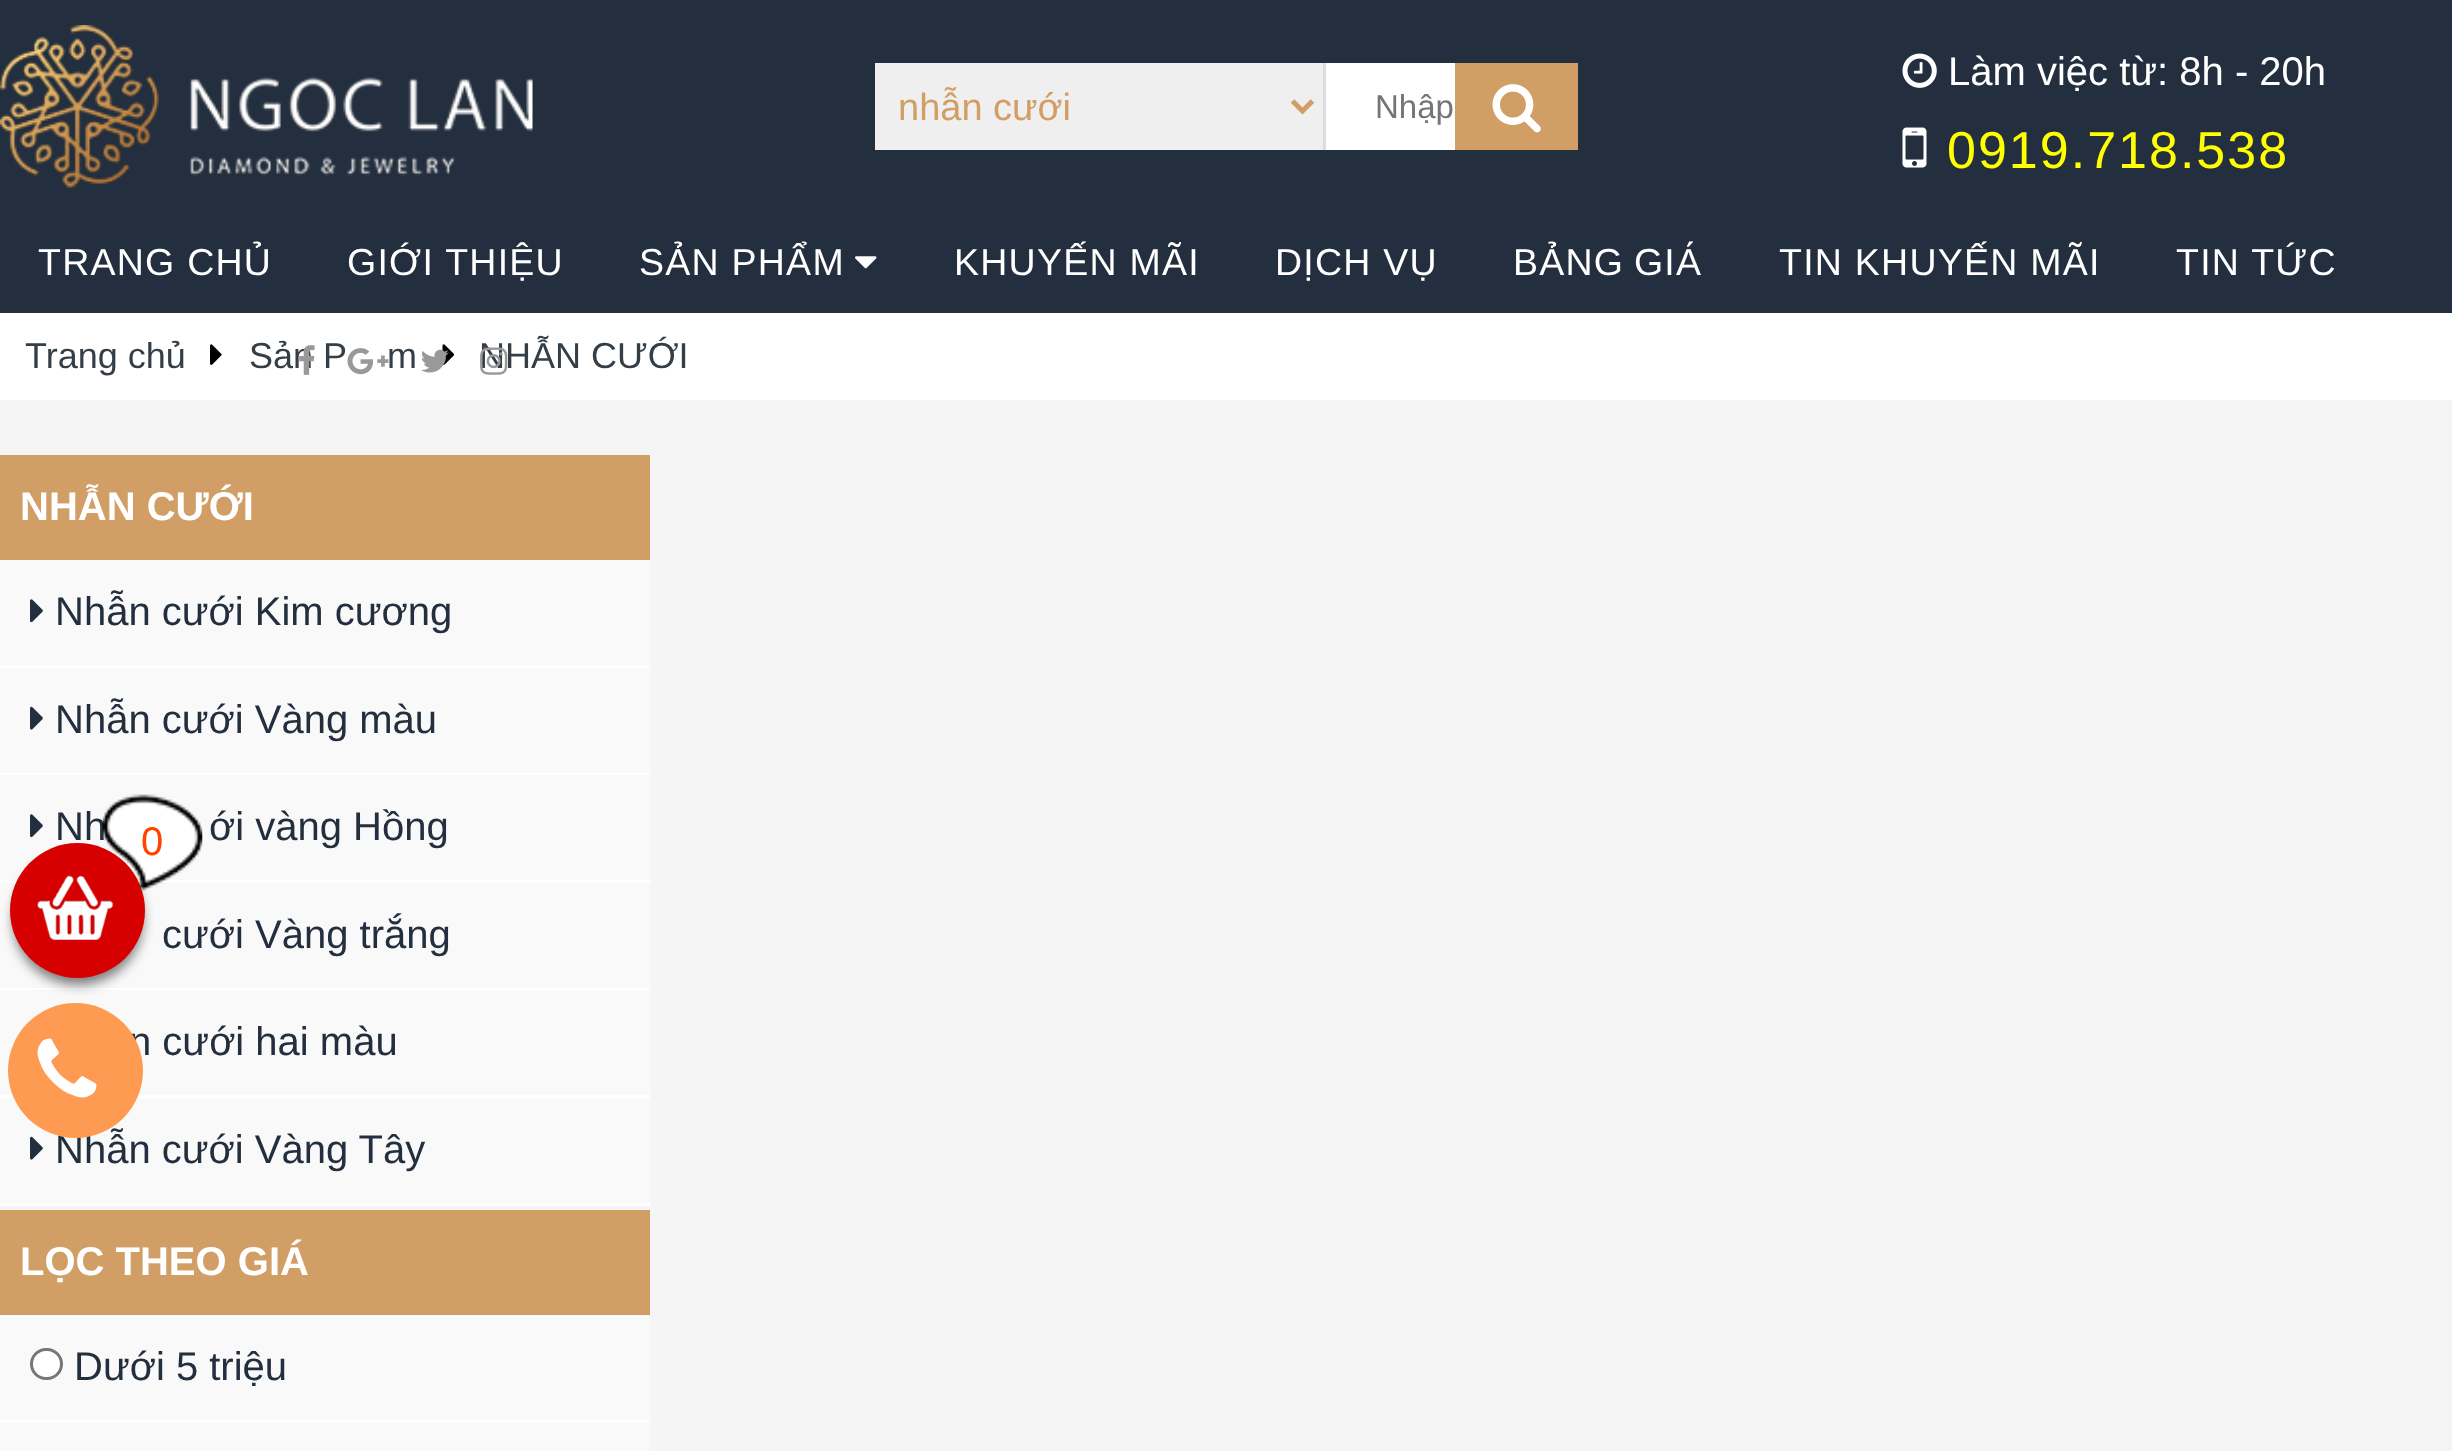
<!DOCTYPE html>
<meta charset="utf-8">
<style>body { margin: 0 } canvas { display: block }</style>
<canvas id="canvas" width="2452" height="1451"></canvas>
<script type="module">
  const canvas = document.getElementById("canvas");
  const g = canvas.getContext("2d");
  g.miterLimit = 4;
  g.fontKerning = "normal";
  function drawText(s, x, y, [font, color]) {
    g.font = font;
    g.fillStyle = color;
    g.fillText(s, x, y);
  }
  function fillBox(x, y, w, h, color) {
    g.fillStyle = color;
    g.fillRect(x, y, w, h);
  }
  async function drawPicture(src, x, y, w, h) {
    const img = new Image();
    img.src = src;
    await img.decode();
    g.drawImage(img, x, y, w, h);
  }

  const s1 = ["38px Liberation Sans", "#D19E66"];
  const s2 = ["33px Liberation Sans", "#757575"];
  const s3 = ["40px Liberation Sans", "#FFFFFF"];
  const s4 = ["52px Liberation Sans", "#FFFF00"];
  const s5 = ["37.5px Liberation Sans", "#FFFFFF"];
  const s6 = ["36px Liberation Sans", "#343E47"];
  const s7 = ["bold 40px Liberation Sans", "#FFFFFF"];
  const s8 = ["40px Liberation Sans", "#232F3E"];
  const s9 = ["40px Liberation Sans", "#FF4400"];

  fillBox(0, 0, 2452, 1451, "#F5F5F5");
  fillBox(0, 0, 2452, 313, "#232F3E");
  await drawPicture("pic1.png", 0, 25, 533, 163);
  fillBox(875, 63, 448, 87, "#EFEFEF");
  fillBox(1323, 63, 3, 87, "#DDDDDD");
  g.beginPath();
  g.moveTo(1292.5, 101);
  g.lineTo(1302.5, 111);
  g.lineTo(1312.5, 101);
  g.strokeStyle = "#D19E66";
  g.lineWidth = 5;
  g.stroke();
  drawText("nhẫn cưới", 898, 120, s1);
  fillBox(1326, 63, 129, 87, "#FFFFFF");
  drawText("Nhập", 1375, 118, s2);
  fillBox(1455, 63, 123, 87, "#D19E66");
  await drawPicture("pic2.png", 1492, 84, 49, 49);
  await drawPicture("pic3.png", 1902, 53, 35, 35);
  drawText("Làm việc từ: 8h - 20h", 1948, 85, s3);
  await drawPicture("pic4.png", 1902, 127, 25, 41);
  g.letterSpacing = "2px";
  drawText("0919.718.538", 1947, 168, s4);
  g.letterSpacing = "1.25px";
  drawText("TRANG CHỦ", 38, 275, s5);
  drawText("GIỚI THIỆU", 347, 275, s5);
  drawText("SẢN PHẨM", 639, 275, s5);
  await drawPicture("pic5.png", 855, 256, 22, 13);
  drawText("KHUYẾN MÃI", 954, 275, s5);
  drawText("DỊCH VỤ", 1275, 275, s5);
  g.wordSpacing = "-2px";
  drawText("BẢNG GIÁ", 1513, 275, s5);
  g.wordSpacing = "0px";
  drawText("TIN KHUYẾN MÃI", 1779, 275, s5);
  drawText("TIN TỨC", 2176, 275, s5);
  fillBox(0, 313, 2452, 87, "#FFFFFF");
  g.letterSpacing = "0px";
  drawText("Sản P", 249, 368, s6);
  await drawPicture("pic6.png", 299, 345, 16, 30);
  await drawPicture("pic7.png", 347, 348, 42, 27);
  await drawPicture("pic11.png", 442, 344, 13, 21);
  await drawPicture("pic8.png", 421, 349, 28, 24);
  drawText("NHẪN CƯỚI", 479, 368, s6);
  await drawPicture("pic9.png", 480, 347, 28, 28);
  drawText("Trang chủ", 25, 368, s6);
  await drawPicture("pic10.png", 210, 344, 12, 21);
  drawText("m", 387, 368, s6);
  fillBox(0, 455, 650, 105, "#D19E66");
  drawText("NHẪN CƯỚI", 20, 520, s7);
  fillBox(0, 560, 650, 105, "#F9F9F9");
  fillBox(0, 665, 650, 3, "#FFFFFF");
  await drawPicture("pic12.png", 30, 599, 13, 24);
  drawText("Nhẫn cưới Kim cương", 55, 625, s8);
  fillBox(0, 668, 650, 105, "#F9F9F9");
  fillBox(0, 773, 650, 2, "#FFFFFF");
  await drawPicture("pic13.png", 30, 706, 13, 24);
  drawText("Nhẫn cưới Vàng màu", 55, 733, s8);
  fillBox(0, 775, 650, 105, "#F9F9F9");
  fillBox(0, 880, 650, 3, "#FFFFFF");
  await drawPicture("pic12.png", 30, 814, 13, 24);
  drawText("Nh", 55, 840, s8);
  drawText("ới vàng Hồng", 209, 840, s8);
  fillBox(0, 883, 650, 105, "#F9F9F9");
  fillBox(0, 988, 650, 2, "#FFFFFF");
  drawText("cưới Vàng trắng", 162, 948, s8);
  fillBox(0, 990, 650, 105, "#F9F9F9");
  fillBox(0, 1095, 650, 3, "#FFFFFF");
  drawText("n cưới hai màu", 129, 1055, s8);
  fillBox(0, 1098, 650, 105, "#F9F9F9");
  fillBox(0, 1203, 650, 3, "#FFFFFF");
  await drawPicture("pic13.png", 30, 1136, 13, 24);
  drawText("Nhẫn cưới Vàng Tây", 55, 1163, s8);
  fillBox(0, 1210, 650, 105, "#D19E66");
  drawText("LỌC THEO GIÁ", 20, 1275, s7);
  fillBox(0, 1315, 650, 105, "#F9F9F9");
  fillBox(0, 1420, 650, 3, "#FFFFFF");
  g.beginPath();
  g.roundRect(31.5, 1349.5, 30, 29, 14.5);
  g.fill();
  g.strokeStyle = "#767676";
  g.lineWidth = 3;
  g.stroke();
  drawText("Dưới 5 triệu", 74, 1380, s8);
  fillBox(0, 1423, 650, 28, "#F9F9F9");
  g.fillStyle = "rgba(0, 0, 0, 0.5)";
  g.filter = "blur(6px)";
  g.beginPath();
  g.roundRect(13, 855, 130, 130, 65);
  g.fill();
  g.filter = "none";
  g.fillStyle = "#D60000";
  g.beginPath();
  g.arc(77.5, 910.5, 67.5, 0, Math.PI * 2);
  g.fill();
  await drawPicture("pic15.png", 37, 875, 76, 65);
  await drawPicture("pic14.png", 102, 794, 101, 97);
  drawText("0", 141, 855, s9);
  g.fillStyle = "#FF9A52";
  g.beginPath();
  g.arc(75.5, 1070.5, 67.5, 0, Math.PI * 2);
  g.fill();
  await drawPicture("pic16.png", 37, 1038, 60, 60);
</script>
